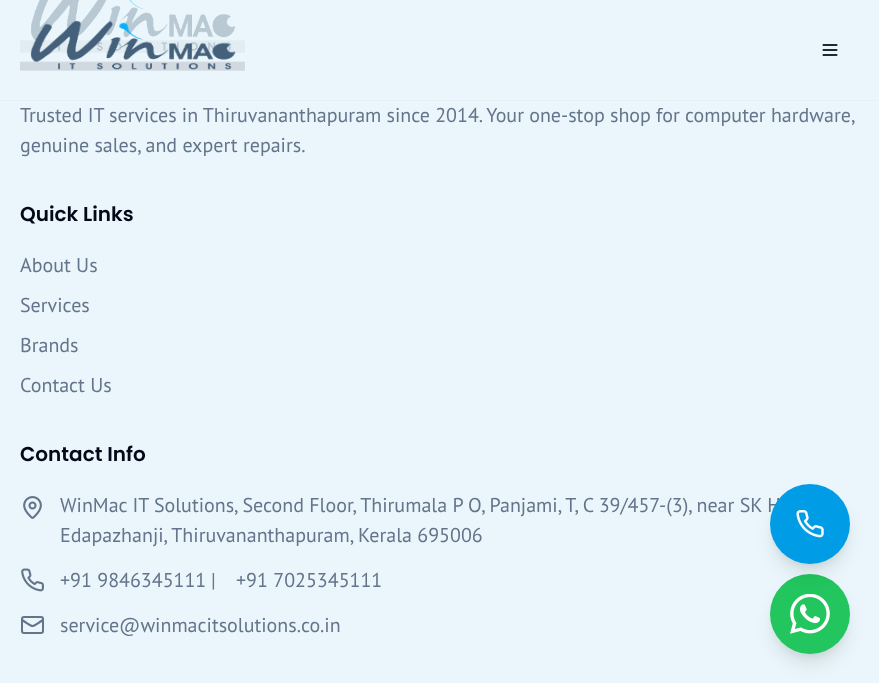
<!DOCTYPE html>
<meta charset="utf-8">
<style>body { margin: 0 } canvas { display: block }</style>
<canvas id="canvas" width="879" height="683"></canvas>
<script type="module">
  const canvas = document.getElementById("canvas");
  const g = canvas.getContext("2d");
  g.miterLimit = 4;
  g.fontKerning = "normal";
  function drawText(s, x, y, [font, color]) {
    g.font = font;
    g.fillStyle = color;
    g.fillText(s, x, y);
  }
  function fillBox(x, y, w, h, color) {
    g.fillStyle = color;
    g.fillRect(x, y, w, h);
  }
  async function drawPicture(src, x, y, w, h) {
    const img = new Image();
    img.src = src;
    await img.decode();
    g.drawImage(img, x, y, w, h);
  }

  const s1 = ["20px PT Sans", "#64748B"];
  const s2 = ["600 20px Poppins", "#020817"];

  fillBox(0, 0, 879, 683, "#EAF6FB");
  await drawPicture("pic3.png", 20, 0, 225, 53);
  fillBox(20, 0, 225, 53, "rgba(234, 246, 251, 0.7)");
  fillBox(0, 100, 879, 1, "#E6F0F7");
  await drawPicture("pic1.png", 20, 20, 225, 51);
  await drawPicture("pic2.png", 822, 44, 16, 12);
  g.wordSpacing = "-0.1px";
  drawText("Trusted IT services in Thiruvananthapuram since 2014. Your one-stop shop for computer hardware,", 20, 122, s1);
  g.wordSpacing = "0px";
  drawText("genuine sales, and expert repairs.", 20, 152, s1);
  drawText("Quick Links", 20, 221, s2);
  drawText("About Us", 20, 272, s1);
  drawText("Services", 20, 312, s1);
  drawText("Brands", 20, 352, s1);
  drawText("Contact Us", 20, 392, s1);
  drawText("Contact Info", 20, 461, s2);
  await drawPicture("pic4.png", 23, 496, 19, 23);
  drawText("WinMac IT Solutions, Second Floor, Thirumala P O, Panjami, T, C 39/457-(3), near SK H", 60, 512, s1);
  drawText("Edapazhanji, Thiruvananthapuram, Kerala 695006", 60, 542, s1);
  await drawPicture("pic5.png", 21, 568, 23, 24);
  drawText("+91 9846345111", 60, 587, s1);
  drawText("|", 211, 587, s1);
  drawText("+91 7025345111", 236, 587, s1);
  g.beginPath();
  g.roundRect(22, 617, 21, 16, 2);
  g.strokeStyle = "#64748B";
  g.lineWidth = 2;
  g.stroke();
  g.beginPath();
  g.moveTo(43, 620);
  g.bezierCurveTo(30, 628, 35, 628, 22, 620);
  g.lineWidth = 2.1;
  g.lineCap = "round";
  g.lineJoin = "round";
  g.stroke();
  drawText("service@winmacitsolutions.co.in", 60, 632, s1);
  g.fillStyle = "rgba(0, 0, 0, 0.1)";
  g.filter = "blur(4px)";
  g.beginPath();
  g.roundRect(775, 584, 70, 70, 35);
  g.fill();
  g.filter = "none";
  g.filter = "blur(9.5px)";
  g.beginPath();
  g.roundRect(774, 590, 72, 73, 36);
  g.fill();
  g.filter = "none";
  g.fillStyle = "#22C55E";
  g.beginPath();
  g.arc(810, 614, 40, 0, Math.PI * 2);
  g.fill();
  g.fillStyle = "rgba(0, 0, 0, 0.1)";
  g.filter = "blur(4px)";
  g.beginPath();
  g.roundRect(775, 494, 70, 70, 35);
  g.fill();
  g.filter = "none";
  await drawPicture("pic7.png", 790, 594, 40, 40);
  g.filter = "blur(9.5px)";
  g.beginPath();
  g.roundRect(774, 500, 72, 73, 36);
  g.fill();
  g.filter = "none";
  g.fillStyle = "#009DE6";
  g.beginPath();
  g.arc(810, 524, 40, 0, Math.PI * 2);
  g.fill();
  await drawPicture("pic6.png", 796, 510, 28, 28);
</script>
